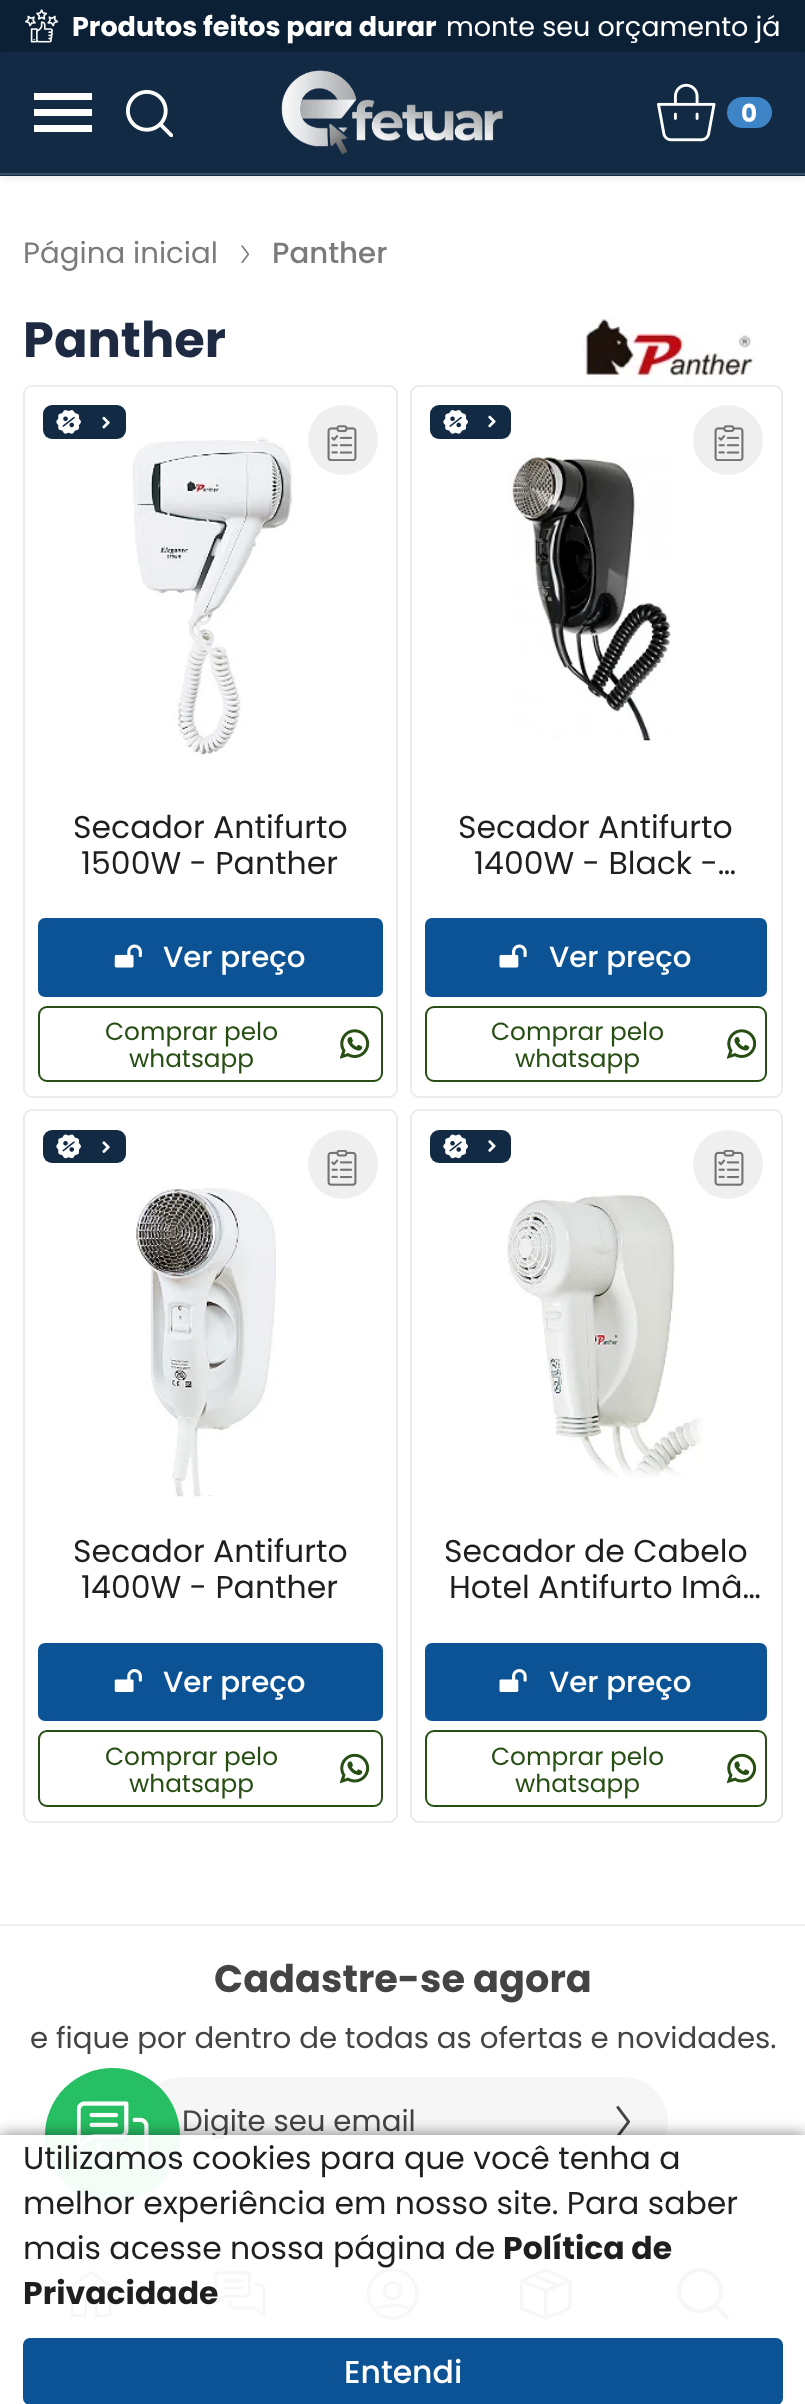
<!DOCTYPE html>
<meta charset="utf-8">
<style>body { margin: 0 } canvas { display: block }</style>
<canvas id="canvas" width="805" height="2404"></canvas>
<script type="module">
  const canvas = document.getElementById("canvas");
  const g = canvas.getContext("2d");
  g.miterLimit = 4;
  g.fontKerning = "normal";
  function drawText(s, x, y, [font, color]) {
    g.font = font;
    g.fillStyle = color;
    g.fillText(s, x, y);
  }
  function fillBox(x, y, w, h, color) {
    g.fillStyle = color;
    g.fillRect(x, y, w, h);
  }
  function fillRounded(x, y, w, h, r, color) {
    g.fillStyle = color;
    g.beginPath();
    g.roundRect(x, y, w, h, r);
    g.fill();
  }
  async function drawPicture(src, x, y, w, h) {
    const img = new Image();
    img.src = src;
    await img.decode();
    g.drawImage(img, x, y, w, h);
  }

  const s1 = ["bold 27px Poppins", "#FFFFFF"];
  const s2 = ["27px Poppins", "#FFFFFF"];
  const s3 = ["bold 24.75px Poppins", "#FFFFFF"];
  const s4 = ["29.25px Poppins", "#7B7B7B"];
  const s5 = ["500 29.25px Poppins", "#7B7B7B"];
  const s6 = ["bold 49.5px Poppins", "#1D2A42"];
  const s7 = ["31.5px Poppins", "#201F1F"];
  const s8 = ["500 29.25px Poppins", "#FFFFFF"];
  const s9 = ["24.75px Poppins", "#274E13"];
  const s10 = ["bold 38.25px Poppins", "#444444"];
  const s11 = ["29.25px Poppins", "#444444"];
  const s12 = ["bold 31.5px Poppins", "#201F1F"];
  const s13 = ["500 31.5px Poppins", "#FFFFFF"];

  fillBox(0, 0, 805, 2404, "#FFFFFF");
  fillBox(0, 0, 805, 52, "#0C2035");
  await drawPicture("pic1.png", 25, 9, 34, 34);
  drawText("Produtos feitos para durar", 72, 36, s1);
  drawText("monte seu orçamento já", 446, 36, s2);
  g.fillStyle = "rgba(82, 82, 82, 0.13)";
  g.filter = "blur(4.5px)";
  g.beginPath();
  g.rect(0, 54, 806, 124);
  g.fill();
  g.filter = "none";
  fillBox(0, 52, 805, 124, "#122A44");
  fillBox(0, 173, 805, 2, "#3C4F64");
  fillBox(34, 125, 58, 7, "#FFFFFF");
  fillBox(34, 109, 58, 7, "#FFFFFF");
  fillBox(34, 93, 58, 7, "#FFFFFF");
  await drawPicture("pic2.png", 126, 90, 47, 47);
  await drawPicture("pic3.png", 281, 70, 222, 85);
  await drawPicture("pic4.png", 657, 83, 59, 59);
  fillRounded(727, 97, 45, 31, 15.5, "#3D85C6");
  drawText("0", 741, 122, s3);
  drawText("Página inicial", 23, 263, s4);
  await drawPicture("pic5.png", 241, 245, 9, 18);
  drawText("Panther", 272, 263, s5);
  drawText("Panther", 23, 357, s6);
  await drawPicture("pic6.png", 582, 317, 174, 65);
  g.beginPath();
  g.roundRect(24, 386, 373, 711, 8);
  g.strokeStyle = "#ECECEC";
  g.lineWidth = 2;
  g.stroke();
  fillRounded(43, 405, 83, 34, 9, "#122A44");
  await drawPicture("pic7.png", 56, 410, 25, 24);
  await drawPicture("pic8.png", 102, 416, 8, 13);
  await drawPicture("pic9.png", 132, 437, 162, 320);
  g.fillStyle = "#EFEFEF";
  g.beginPath();
  g.arc(343, 440, 35, 0, Math.PI * 2);
  g.fill();
  await drawPicture("pic10.png", 327, 425, 30, 36);
  drawText("Secador Antifurto", 73, 838, s7);
  drawText("1500W - Panther", 81, 874, s7);
  fillRounded(38, 918, 345, 79, 7, "#0B5394");
  await drawPicture("pic11.png", 114, 944, 28, 24);
  drawText("Ver preço", 163, 967, s8);
  g.beginPath();
  g.roundRect(39, 1007, 343, 74, 8);
  g.strokeStyle = "#274E13";
  g.stroke();
  drawText("Comprar pelo", 105, 1040, s9);
  drawText("whatsapp", 129, 1067, s9);
  await drawPicture("pic12.png", 340, 1029, 30, 30);
  g.beginPath();
  g.roundRect(411, 386, 371, 711, 8);
  g.strokeStyle = "#ECECEC";
  g.stroke();
  fillRounded(430, 405, 81, 34, 9, "#122A44");
  await drawPicture("pic7.png", 443, 410, 25, 24);
  await drawPicture("pic13.png", 488, 415, 8, 13);
  g.fillStyle = "#EFEFEF";
  g.beginPath();
  g.arc(728, 440, 35, 0, Math.PI * 2);
  g.fill();
  await drawPicture("pic10.png", 714, 425, 30, 36);
  await drawPicture("pic14.png", 509, 455, 162, 286);
  drawText("Secador Antifurto", 458, 838, s7);
  drawText("1400W - Black -…", 474, 874, s7);
  fillRounded(425, 918, 342, 79, 7, "#0B5394");
  await drawPicture("pic15.png", 499, 944, 28, 24);
  drawText("Ver preço", 549, 967, s8);
  g.beginPath();
  g.roundRect(426, 1007, 340, 74, 8);
  g.strokeStyle = "#274E13";
  g.stroke();
  drawText("Comprar pelo", 491, 1040, s9);
  drawText("whatsapp", 515, 1067, s9);
  await drawPicture("pic16.png", 727, 1029, 29, 30);
  g.beginPath();
  g.roundRect(24, 1110, 373, 712, 8);
  g.strokeStyle = "#ECECEC";
  g.stroke();
  fillRounded(43, 1130, 83, 33, 9, "#122A44");
  await drawPicture("pic17.png", 56, 1134, 25, 25);
  await drawPicture("pic18.png", 102, 1141, 8, 12);
  fillRounded(308, 1130, 70, 69, 34.5, "#EFEFEF");
  await drawPicture("pic19.png", 327, 1150, 30, 36);
  await drawPicture("pic20.png", 136, 1188, 140, 309);
  drawText("Secador Antifurto", 73, 1562, s7);
  drawText("1400W - Panther", 81, 1598, s7);
  fillRounded(38, 1643, 345, 78, 7, "#0B5394");
  await drawPicture("pic21.png", 114, 1669, 28, 23);
  drawText("Ver preço", 163, 1692, s8);
  g.beginPath();
  g.roundRect(39, 1731, 343, 75, 8);
  g.strokeStyle = "#274E13";
  g.stroke();
  drawText("Comprar pelo", 105, 1765, s9);
  drawText("whatsapp", 129, 1792, s9);
  await drawPicture("pic22.png", 340, 1753, 30, 31);
  g.beginPath();
  g.roundRect(411, 1110, 371, 712, 8);
  g.strokeStyle = "#ECECEC";
  g.stroke();
  fillRounded(430, 1130, 81, 33, 9, "#122A44");
  await drawPicture("pic17.png", 443, 1134, 25, 25);
  await drawPicture("pic23.png", 488, 1140, 8, 12);
  await drawPicture("pic24.png", 507, 1193, 196, 285);
  fillRounded(693, 1130, 70, 69, 34.5, "#EFEFEF");
  await drawPicture("pic19.png", 714, 1150, 30, 36);
  drawText("Secador de Cabelo", 444, 1562, s7);
  drawText("Hotel Antifurto Imâ…", 449, 1598, s7);
  fillRounded(425, 1643, 342, 78, 7, "#0B5394");
  await drawPicture("pic25.png", 499, 1669, 28, 23);
  drawText("Ver preço", 549, 1692, s8);
  g.beginPath();
  g.roundRect(426, 1731, 340, 75, 8);
  g.strokeStyle = "#274E13";
  g.stroke();
  drawText("Comprar pelo", 491, 1765, s9);
  drawText("whatsapp", 515, 1792, s9);
  await drawPicture("pic26.png", 727, 1753, 29, 31);
  fillBox(0, 1924, 805, 2, "#EFEFEF");
  drawText("Cadastre-se agora", 214, 1992, s10);
  g.save();
  g.beginPath();
  g.rect(23, 2021, 760, 33);
  g.clip();
  drawText("e fique por dentro de todas as ofertas e novidades.", 30, 2048, s11);
  g.restore();
  fillRounded(137, 2077, 531, 90, 45, "#F6F6F6");
  drawText("Digite seu email", 182, 2131, s11);
  await drawPicture("pic27.png", 616, 2106, 14, 32);
  fillBox(23, 2201, 760, 2, "#E2E2E2");
  g.fillStyle = "rgba(103, 103, 103, 0.1)";
  g.filter = "blur(9px)";
  g.beginPath();
  g.roundRect(45, 2090, 135, 135, 67.5);
  g.fill();
  g.filter = "none";
  g.fillStyle = "rgba(0, 0, 0, 0.04)";
  g.filter = "blur(1px)";
  g.beginPath();
  g.roundRect(45, 2072, 135, 135, 67.5);
  g.fill();
  g.filter = "none";
  g.fillStyle = "#27BF64";
  g.beginPath();
  g.arc(112.5, 2135.5, 67.5, 0, Math.PI * 2);
  g.fill();
  await drawPicture("pic28.png", 77, 2101, 72, 64);
  g.fillStyle = "rgba(82, 82, 82, 0.08)";
  g.filter = "blur(4.5px)";
  g.beginPath();
  g.rect(0, 2239, 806, 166);
  g.fill();
  g.filter = "none";
  fillBox(0, 2241, 805, 163, "#FFFFFF");
  fillBox(0, 2239, 805, 2, "#E2E2E2");
  await drawPicture("pic29.png", 65, 2270, 52, 47);
  await drawPicture("pic30.png", 214, 2271, 52, 46);
  await drawPicture("pic31.png", 367, 2268, 52, 52);
  await drawPicture("pic32.png", 520, 2268, 52, 52);
  await drawPicture("pic33.png", 677, 2268, 52, 52);
  g.save();
  g.beginPath();
  g.moveTo(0, 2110);
  g.lineTo(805, 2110);
  g.lineTo(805, 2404);
  g.lineTo(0, 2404);
  g.closePath();
  g.moveTo(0, 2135);
  g.lineTo(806, 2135);
  g.lineTo(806, 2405);
  g.lineTo(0, 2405);
  g.closePath();
  g.clip("evenodd");
  g.fillStyle = "rgba(0, 0, 0, 0.5)";
  g.filter = "blur(8px)";
  g.beginPath();
  g.rect(0, 2135, 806, 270);
  g.fill();
  g.filter = "none";
  g.restore();
  fillBox(0, 2135, 805, 185, "rgba(255, 255, 255, 0.95)");
  drawText("Utilizamos cookies para que você tenha a", 23, 2169, s7);
  drawText("melhor experiência em nosso site. Para saber", 23, 2214, s7);
  drawText("mais acesse nossa página de", 23, 2259, s7);
  drawText("Política de", 503, 2259, s12);
  drawText("Privacidade", 23, 2304, s12);
  fillRounded(23, 2338, 760, 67, 7, "#0B5394");
  drawText("Entendi", 344, 2383, s13);
</script>
